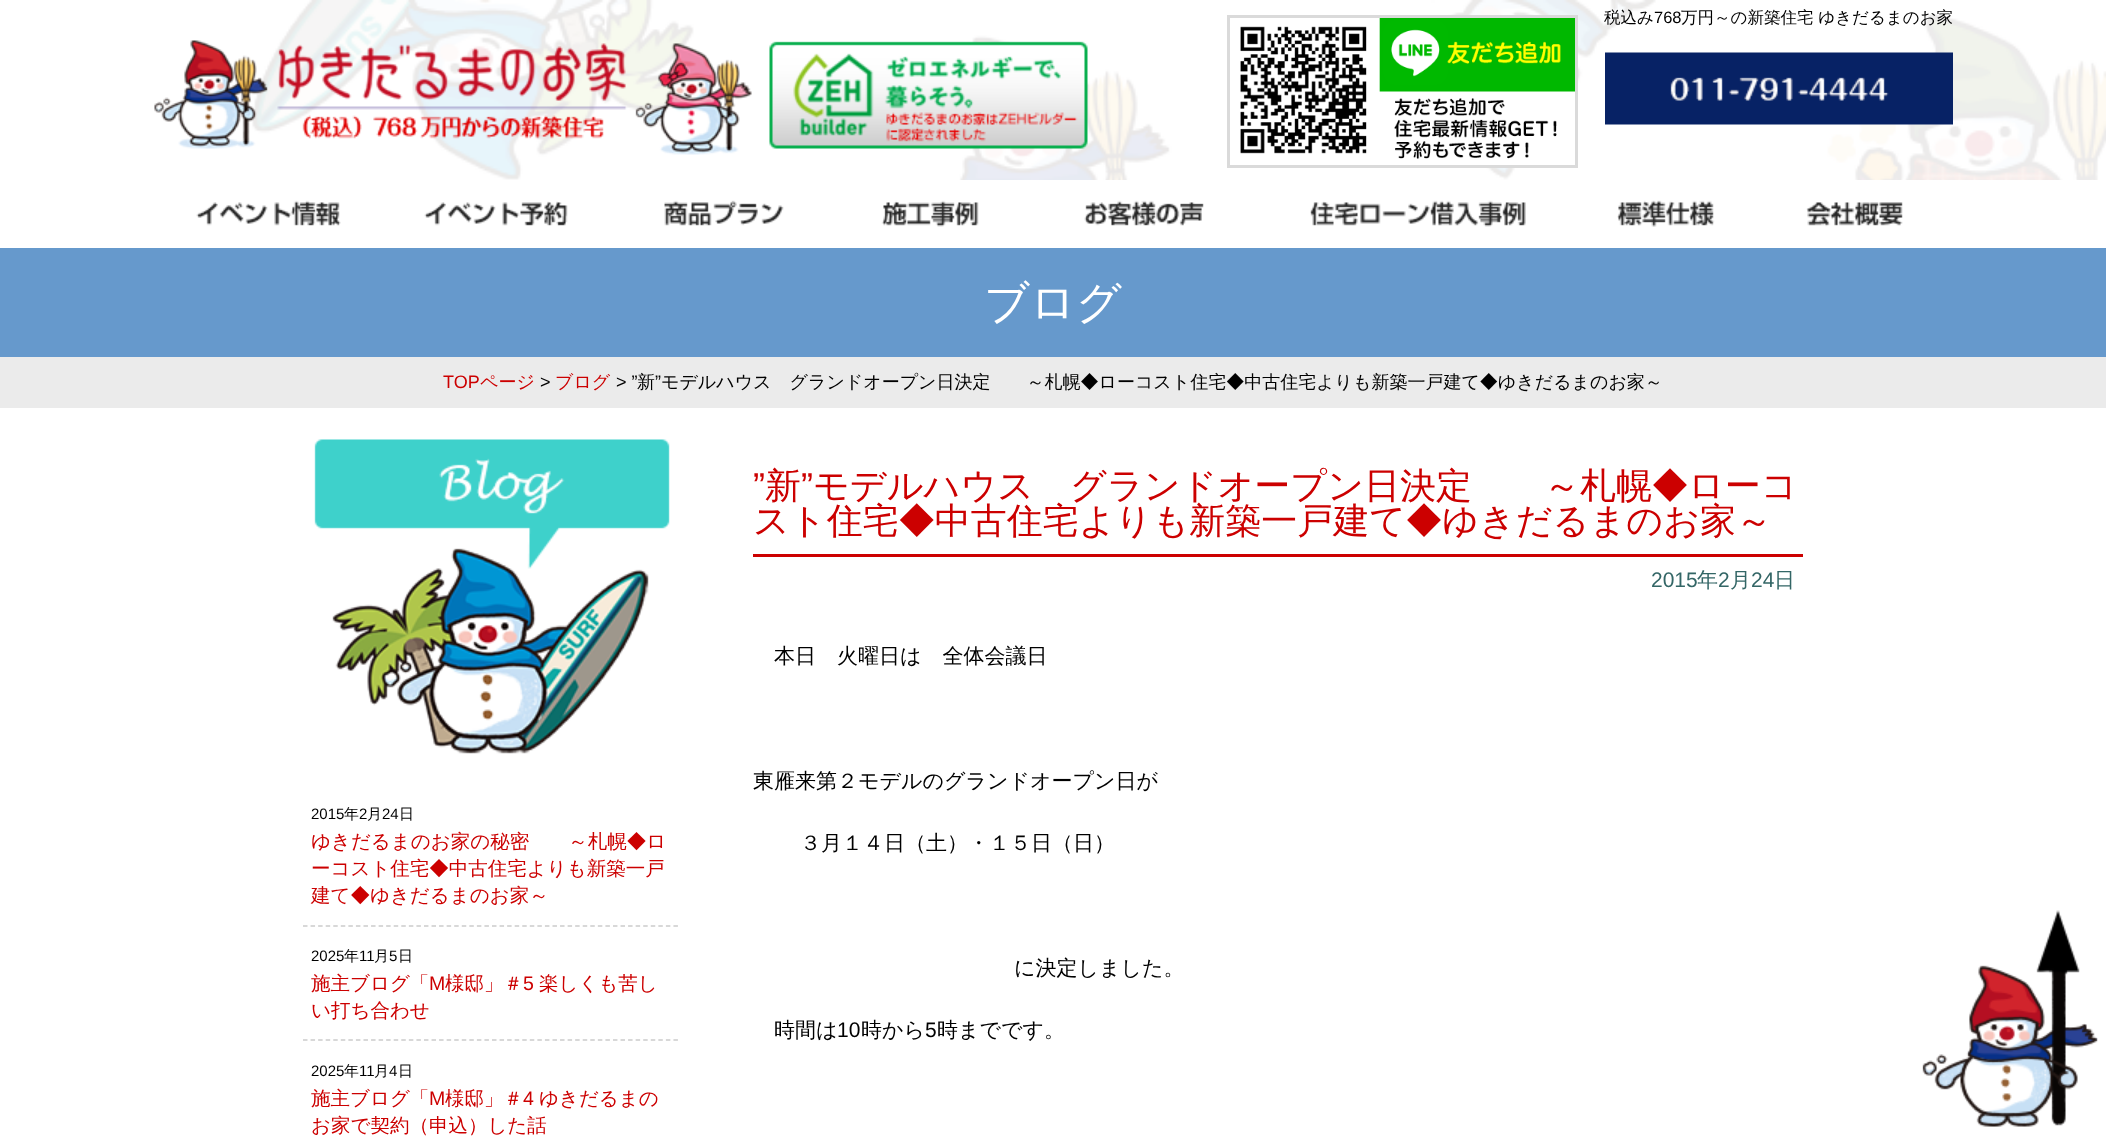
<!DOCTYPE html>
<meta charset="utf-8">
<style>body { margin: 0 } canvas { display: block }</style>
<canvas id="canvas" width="2106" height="1141"></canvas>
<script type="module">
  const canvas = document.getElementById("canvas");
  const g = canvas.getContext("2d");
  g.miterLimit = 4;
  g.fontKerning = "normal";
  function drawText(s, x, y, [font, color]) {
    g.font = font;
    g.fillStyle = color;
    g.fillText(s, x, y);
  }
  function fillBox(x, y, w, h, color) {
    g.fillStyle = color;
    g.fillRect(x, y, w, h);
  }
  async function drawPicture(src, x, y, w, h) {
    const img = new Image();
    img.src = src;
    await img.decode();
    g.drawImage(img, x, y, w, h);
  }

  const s1 = ["500 16.5px WenQuanYi Zen Hei", "#000000"];
  const s2 = ["16.5px Liberation Sans", "#000000"];
  const s3 = ["500 45px WenQuanYi Zen Hei", "#FFFFFF"];
  const s4 = ["18px Liberation Sans", "#CC0000"];
  const s5 = ["500 18px WenQuanYi Zen Hei", "#CC0000"];
  const s6 = ["18px Liberation Sans", "#000000"];
  const s7 = ["500 18px WenQuanYi Zen Hei", "#000000"];
  const s8 = ["15px Liberation Sans", "#000000"];
  const s9 = ["500 15px WenQuanYi Zen Hei", "#000000"];
  const s10 = ["500 19.5px WenQuanYi Zen Hei", "#CC0000"];
  const s11 = ["19.5px Liberation Sans", "#CC0000"];
  const s12 = ["36px Liberation Sans", "#CC0000"];
  const s13 = ["500 36px WenQuanYi Zen Hei", "#CC0000"];
  const s14 = ["21px Liberation Sans", "#336666"];
  const s15 = ["500 21px WenQuanYi Zen Hei", "#336666"];
  const s16 = ["500 21px WenQuanYi Zen Hei", "#000000"];
  const s17 = ["21px Liberation Sans", "#000000"];

  fillBox(0, 0, 2106, 1141, "#FFFFFF");
  await drawPicture("pic1.png", 252, 0, 1854, 180);
  await drawPicture("pic2.png", 154, 40, 598, 115);
  await drawPicture("pic3.png", 769, 41, 319, 108);
  await drawPicture("pic4.png", 1227, 15, 351, 153);
  drawText("税込み", 1604, 23, s1);
  drawText("768", 1654, 23, s2);
  drawText("万円～の新築住宅 ゆきだるまのお家", 1681, 23, s1);
  await drawPicture("pic5.png", 1605, 52, 348, 73);
  await drawPicture("pic6.png", 196, 200, 145, 26);
  await drawPicture("pic7.png", 424, 201, 144, 25);
  await drawPicture("pic8.png", 664, 200, 120, 26);
  await drawPicture("pic9.png", 881, 200, 98, 27);
  await drawPicture("pic10.png", 1084, 200, 120, 26);
  await drawPicture("pic11.png", 1310, 200, 216, 27);
  await drawPicture("pic12.png", 1617, 200, 98, 27);
  await drawPicture("pic13.png", 1806, 202, 97, 25);
  fillBox(0, 248, 2106, 109, "#6699CC");
  drawText("ブログ", 984, 318, s3);
  fillBox(0, 357, 2106, 51, "#EBEBEB");
  drawText("TOP", 443, 388, s4);
  drawText("ページ", 480, 388, s5);
  drawText(">", 540, 388, s6);
  drawText("ブログ", 555, 388, s5);
  drawText("> ”", 616, 388, s6);
  drawText("新", 637, 388, s7);
  drawText("”", 655, 388, s6);
  drawText("モデルハウス　グランドオープン日決定　　～札幌◆ローコスト住宅◆中古住宅よりも新築一戸建て◆ゆきだるまのお家～", 661, 388, s7);
  await drawPicture("pic14.png", 314, 439, 356, 315);
  g.beginPath();
  g.moveTo(303, 926);
  g.lineTo(678, 926);
  g.strokeStyle = "#CCCCCC";
  g.lineWidth = 1.5;
  g.setLineDash([4.5, 3.06]);
  g.stroke();
  drawText("2015", 311, 819, s8);
  drawText("年", 344, 819, s9);
  drawText("2", 359, 819, s8);
  drawText("月", 367, 819, s9);
  drawText("24", 382, 819, s8);
  drawText("日", 399, 819, s9);
  drawText("ゆきだるまのお家の秘密　　～札幌◆ロ", 311, 848, s10);
  drawText("ーコスト住宅◆中古住宅よりも新築一戸", 311, 875, s10);
  drawText("建て◆ゆきだるまのお家～", 311, 902, s10);
  g.beginPath();
  g.moveTo(303, 1040);
  g.lineTo(678, 1040);
  g.stroke();
  drawText("2025", 311, 961, s8);
  drawText("年", 344, 961, s9);
  drawText("11", 359, 961, s8);
  drawText("月", 374, 961, s9);
  drawText("5", 389, 961, s8);
  drawText("日", 398, 961, s9);
  drawText("施主ブログ「", 311, 990, s10);
  drawText("M", 429, 990, s11);
  drawText("様邸」＃", 445, 990, s10);
  drawText("5", 523, 990, s11);
  drawText("楽しくも苦し", 539, 990, s10);
  drawText("い打ち合わせ", 311, 1017, s10);
  drawText("2025", 311, 1076, s8);
  drawText("年", 344, 1076, s9);
  drawText("11", 359, 1076, s8);
  drawText("月", 374, 1076, s9);
  drawText("4", 389, 1076, s8);
  drawText("日", 398, 1076, s9);
  drawText("施主ブログ「", 311, 1105, s10);
  drawText("M", 429, 1105, s11);
  drawText("様邸」＃", 445, 1105, s10);
  drawText("4", 523, 1105, s11);
  drawText("ゆきだるまの", 539, 1105, s10);
  drawText("お家で契約（申込）した話", 311, 1132, s10);
  fillBox(753, 554, 1050, 3, "#CC0000");
  drawText("”", 753, 498, s12);
  drawText("新", 765, 498, s13);
  drawText("”", 801, 498, s12);
  drawText("モデルハウス　グランドオープン日決定　　～札幌◆ローコ", 813, 498, s13);
  drawText("スト住宅◆中古住宅よりも新築一戸建て◆ゆきだるまのお家～", 753, 533, s13);
  drawText("2015", 1651, 587, s14);
  drawText("年", 1697, 587, s15);
  drawText("2", 1718, 587, s14);
  drawText("月", 1730, 587, s15);
  drawText("24", 1751, 587, s14);
  drawText("日", 1774, 587, s15);
  drawText("本日　火曜日は　全体会議日", 774, 663, s16);
  drawText("東雁来第２モデルのグランドオープン日が", 753, 788, s16);
  drawText("３月１４日（土）・１５日（日）", 800, 850, s16);
  drawText("に決定しました。", 1014, 975, s16);
  drawText("時間は", 774, 1037, s16);
  drawText("10", 837, 1037, s17);
  drawText("時から", 861, 1037, s16);
  drawText("5", 925, 1037, s17);
  drawText("時までです。", 937, 1037, s16);
  await drawPicture("pic15.png", 1922, 910, 176, 217);
</script>
